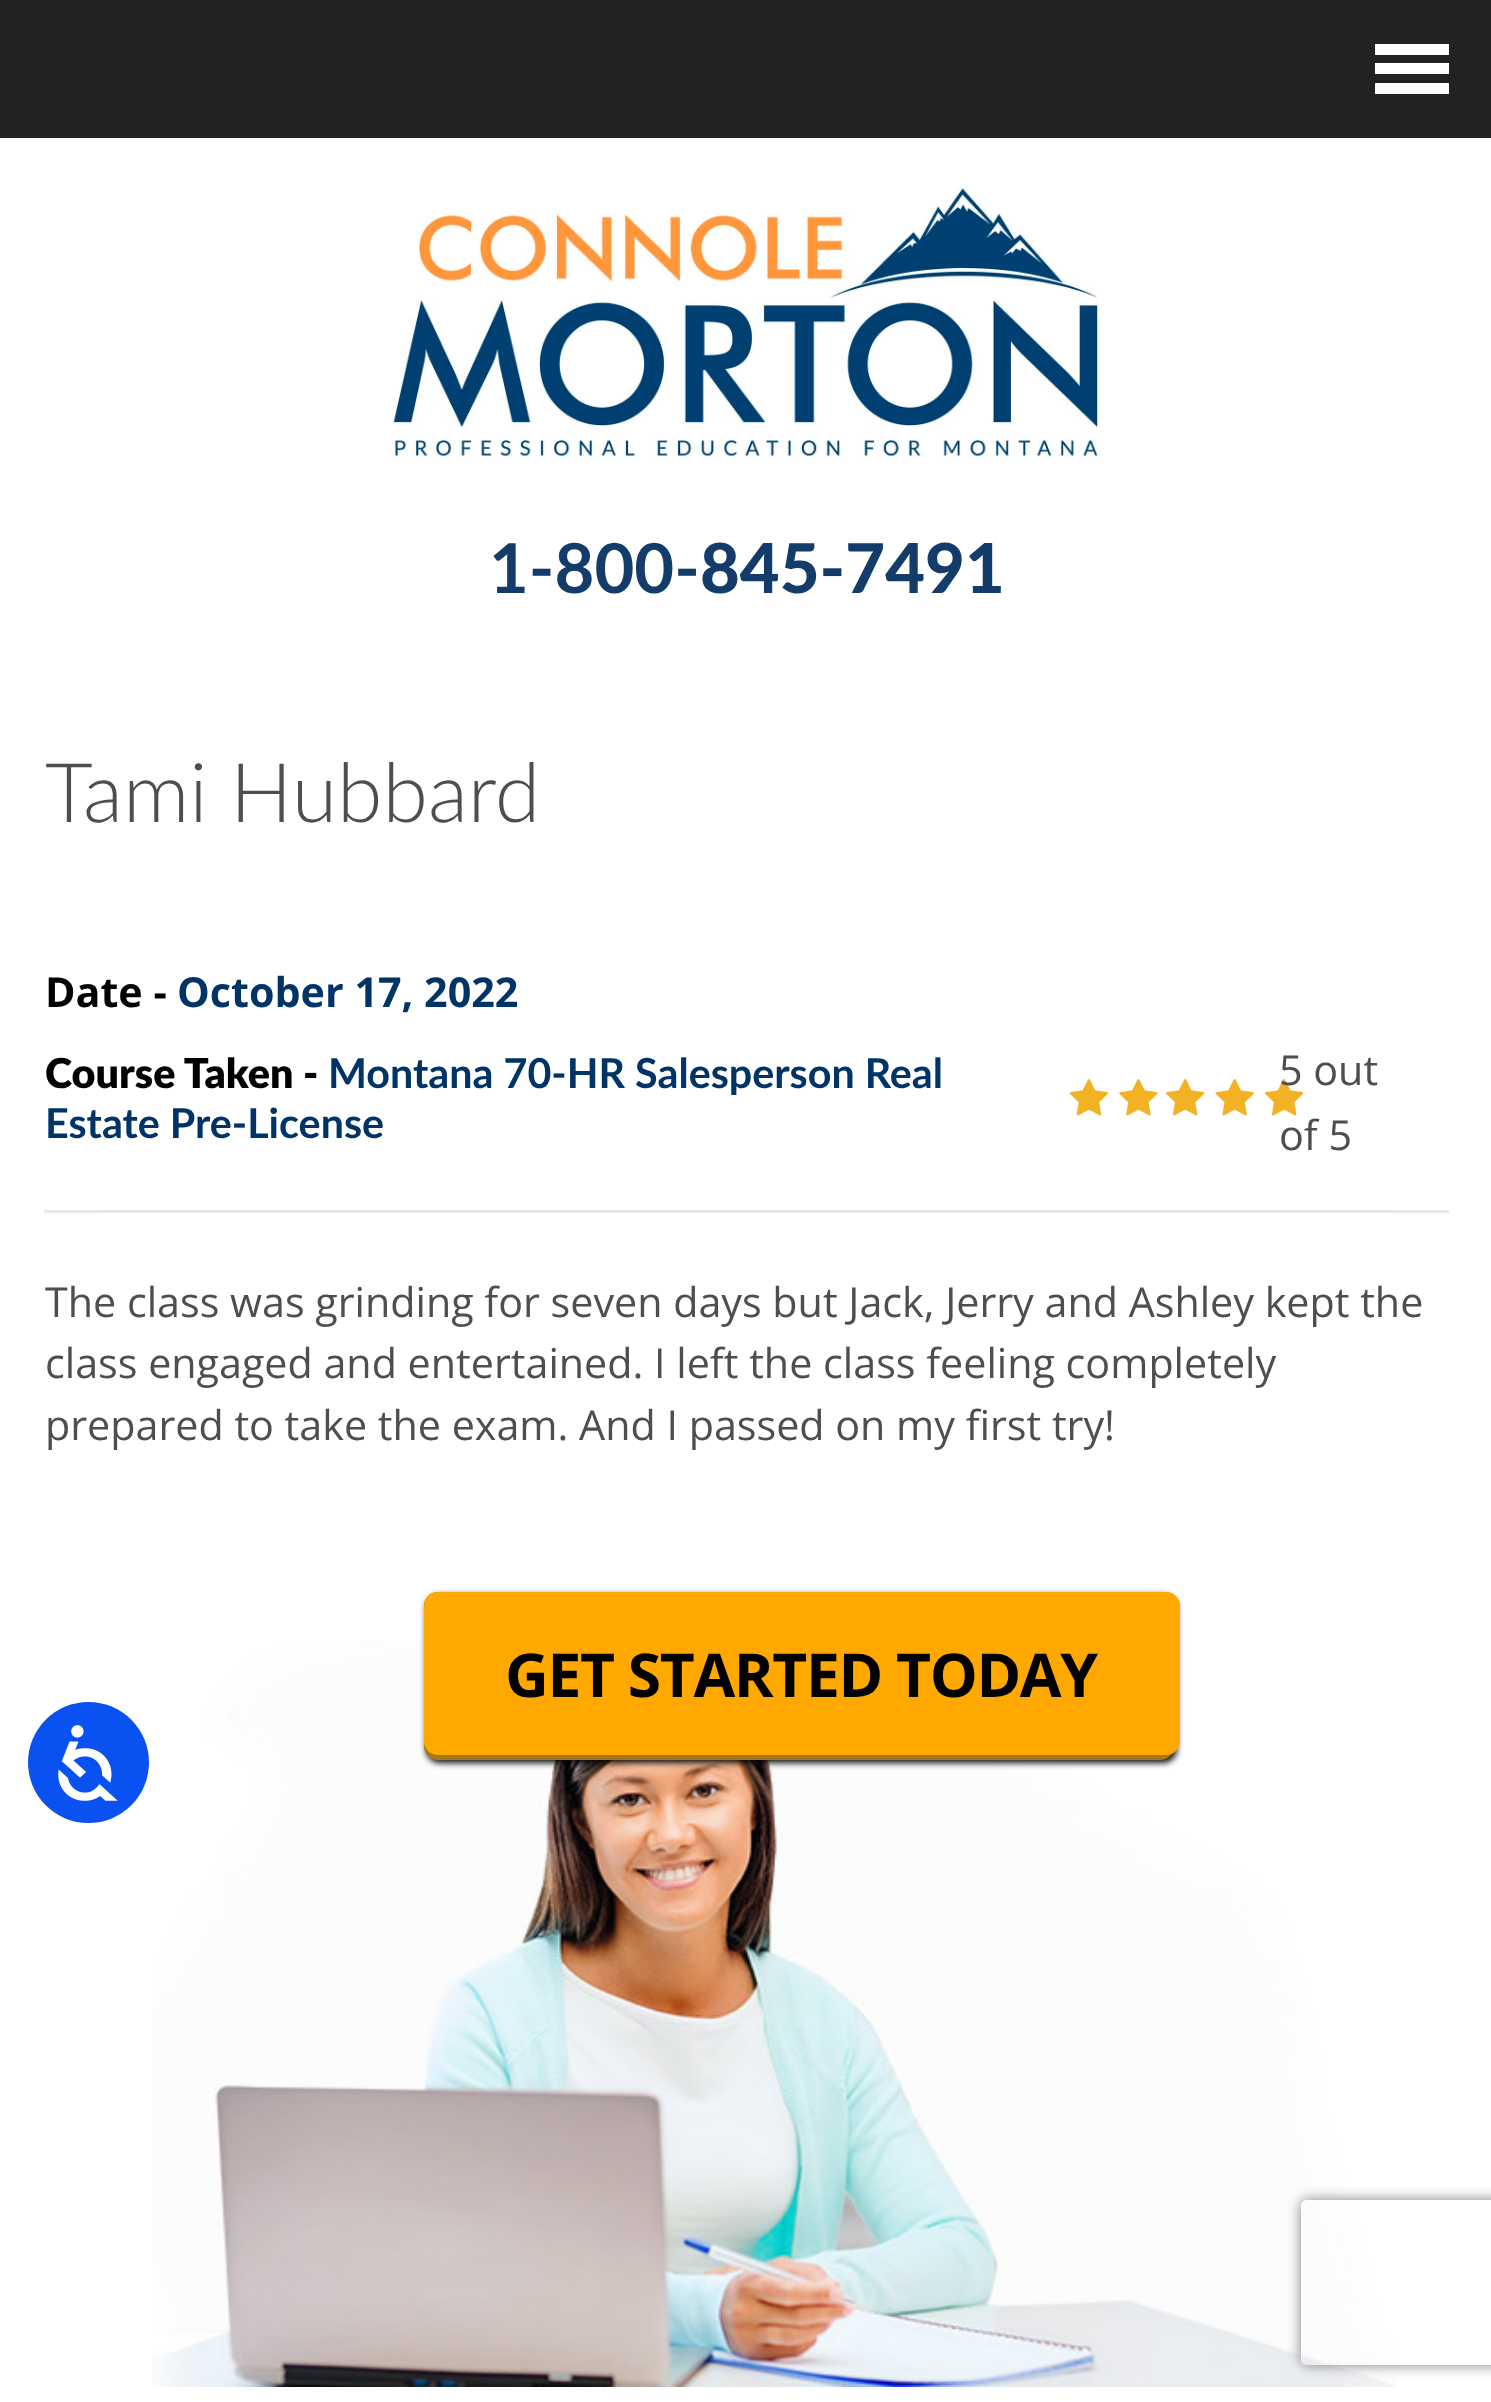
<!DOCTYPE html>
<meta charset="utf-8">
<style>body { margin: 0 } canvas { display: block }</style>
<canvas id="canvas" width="1491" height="2402"></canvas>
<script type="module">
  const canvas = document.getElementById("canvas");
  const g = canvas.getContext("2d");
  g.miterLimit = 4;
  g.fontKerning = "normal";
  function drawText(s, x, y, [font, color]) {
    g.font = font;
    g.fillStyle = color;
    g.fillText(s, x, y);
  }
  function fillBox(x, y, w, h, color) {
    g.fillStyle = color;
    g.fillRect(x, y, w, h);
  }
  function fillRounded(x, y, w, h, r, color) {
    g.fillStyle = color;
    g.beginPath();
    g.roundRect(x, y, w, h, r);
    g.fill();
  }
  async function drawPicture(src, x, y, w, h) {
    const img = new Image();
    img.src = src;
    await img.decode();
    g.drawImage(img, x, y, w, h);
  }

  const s1 = ["bold 68.75px Lato", "#133C6A"];
  const s2 = ["900 68.75px 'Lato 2'", "#133C6A"];
  const s3 = ["300 82.5px Lato", "#4E4E4E"];
  const s4 = ["bold 41.25px Open Sans", "#000000"];
  const s5 = ["bold 41.25px Open Sans", "#003366"];
  const s6 = ["900 41.25px Lato", "#000000"];
  const s7 = ["bold 41.25px Lato", "#003366"];
  const s8 = ["41.25px Open Sans", "#4E4E4E"];
  const s9 = ["bold 60.5px Open Sans", "#000000"];

  fillBox(0, 0, 1491, 2402, "#FFFFFF");
  fillBox(0, 0, 1491, 138, "#222222");
  fillBox(1375, 83, 74, 11, "#FFFFFF");
  fillBox(1375, 44, 74, 11, "#FFFFFF");
  fillBox(1375, 63, 74, 11, "#FFFFFF");
  await drawPicture("pic1.png", 393, 187, 706, 272);
  drawText("1-800-", 489, 593, s1);
  drawText("845-7491", 700, 593, s2);
  drawText("Tami Hubbard", 45, 822, s3);
  await drawPicture("pic2.png", 44, 1210, 1406, 4);
  drawText("Date -", 45, 1007, s4);
  drawText("October 17, 2022", 177, 1007, s5);
  drawText("Course Taken -", 45, 1088, s6);
  drawText("Montana 70-HR Salesperson Real", 328, 1088, s7);
  drawText("Estate Pre-License", 45, 1138, s7);
  await drawPicture("pic3.png", 1069, 1079, 39, 37);
  await drawPicture("pic4.png", 1119, 1079, 39, 37);
  await drawPicture("pic5.png", 1166, 1079, 39, 37);
  await drawPicture("pic6.png", 1215, 1079, 39, 37);
  await drawPicture("pic5.png", 1265, 1079, 39, 37);
  drawText("5 out", 1279, 1085, s8);
  drawText("of 5", 1279, 1150, s8);
  drawText("The class was grinding for seven days but Jack, Jerry and Ashley kept the", 45, 1317, s8);
  drawText("class engaged and entertained. I left the class feeling completely", 45, 1378, s8);
  drawText("prepared to take the exam. And I passed on my first try!", 45, 1440, s8);
  await drawPicture("pic7.png", 152, 1640, 1246, 747);
  g.fillStyle = "rgba(0, 1, 1, 0.94)";
  g.filter = "blur(3px)";
  g.beginPath();
  g.roundRect(426, 1595, 751, 168, 14);
  g.fill();
  g.filter = "none";
  fillRounded(424, 1592, 750, 168, 14, "#A6771D");
  fillRounded(424, 1592, 756, 163, 14, "#FFA800");
  g.letterSpacing = "-1.4px";
  drawText("GET STARTED TODAY", 505, 1697, s9);
  g.fillStyle = "#0A51F2";
  g.beginPath();
  g.arc(88.5, 1762.5, 60.5, 0, Math.PI * 2);
  g.fill();
  await drawPicture("pic8.png", 58, 1725, 60, 76);
  g.save();
  g.beginPath();
  g.moveTo(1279, 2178);
  g.lineTo(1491, 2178);
  g.lineTo(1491, 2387);
  g.lineTo(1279, 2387);
  g.closePath();
  g.moveTo(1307, 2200);
  g.lineTo(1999, 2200);
  g.bezierCurveTo(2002.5, 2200, 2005, 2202.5, 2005, 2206);
  g.lineTo(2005, 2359);
  g.bezierCurveTo(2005, 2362.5, 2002.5, 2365, 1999, 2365);
  g.lineTo(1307, 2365);
  g.bezierCurveTo(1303.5, 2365, 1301, 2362.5, 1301, 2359);
  g.lineTo(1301, 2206);
  g.bezierCurveTo(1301, 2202.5, 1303.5, 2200, 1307, 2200);
  g.closePath();
  g.clip("evenodd");
  g.fillStyle = "#808080";
  g.filter = "blur(7px)";
  g.beginPath();
  g.roundRect(1301, 2200, 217, 165, 6);
  g.fill();
  g.filter = "none";
  g.restore();
</script>
